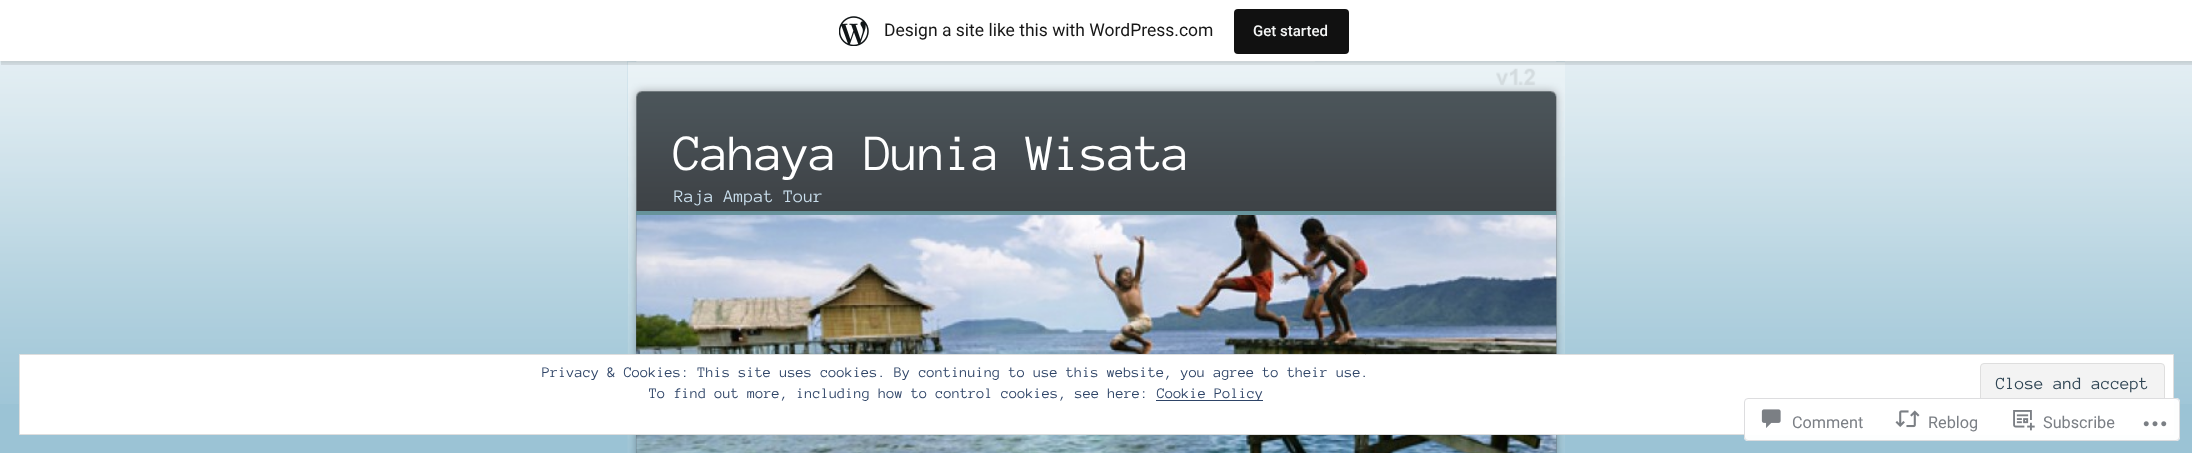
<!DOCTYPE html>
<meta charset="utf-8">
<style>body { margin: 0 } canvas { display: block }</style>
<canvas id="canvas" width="2192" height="453"></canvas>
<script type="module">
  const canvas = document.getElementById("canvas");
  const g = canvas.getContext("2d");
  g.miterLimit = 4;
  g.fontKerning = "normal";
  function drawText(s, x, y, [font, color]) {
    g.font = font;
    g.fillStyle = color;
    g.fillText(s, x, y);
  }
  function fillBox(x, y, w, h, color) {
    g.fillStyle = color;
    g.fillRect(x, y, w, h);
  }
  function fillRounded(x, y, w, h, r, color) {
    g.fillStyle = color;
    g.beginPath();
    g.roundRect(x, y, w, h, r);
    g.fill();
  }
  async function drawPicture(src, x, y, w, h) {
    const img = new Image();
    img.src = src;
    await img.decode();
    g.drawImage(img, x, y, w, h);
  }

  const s1 = ["17.5px Roboto", "#171717"];
  const s2 = ["500 15px Roboto", "#F6F7F7"];
  const s3 = ["52px Anonymous Pro", "#FFFFFF"];
  const s4 = ["18.25px Anonymous Pro", "#CADFED"];
  const s5 = ["15px Anonymous Pro", "#2E4467"];
  const s6 = ["17.5px Anonymous Pro", "#2E4453"];
  const s7 = ["16.25px Roboto", "#7B7F85"];

  fillBox(0, 0, 2192, 453, "#9BC3D5");
  await drawPicture("pic1.png", 0, 61, 2192, 343);
  await drawPicture("pic3.png", 627, 61, 938, 392);
  await drawPicture("pic4.png", 627, 61, 938, 392);
  g.fillStyle = "rgba(0, 0, 0, 0.05)";
  g.filter = "blur(1px)";
  g.beginPath();
  g.rect(0, 1, 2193, 62);
  g.fill();
  g.filter = "none";
  g.fillStyle = "rgba(0, 0, 0, 0.08)";
  g.beginPath();
  g.moveTo(1, 61);
  g.lineTo(1, 65);
  g.lineTo(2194, 65);
  g.lineTo(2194, 4);
  g.lineTo(2192, 4);
  g.lineTo(2192, 61);
  g.closePath();
  g.fill();
  fillBox(0, 0, 2192, 61, "#FFFFFF");
  await drawPicture("pic2.png", 839, 16, 30, 30);
  drawText("Design a site like this with WordPress.com", 884, 36, s1);
  fillRounded(1234, 9, 115, 45, 4, "#111111");
  drawText("Get started", 1253, 36, s2);
  g.letterSpacing = "-1.25px";
  drawText("Cahaya Dunia Wisata", 674, 170, s3);
  g.letterSpacing = "0px";
  drawText("Raja Ampat Tour", 674, 202, s4);
  await drawPicture("pic5.png", 636, 215, 921, 238);
  fillBox(636, 211, 920, 4, "#67939B");
  g.fillStyle = "#FFFFFF";
  g.beginPath();
  g.rect(19.5, 354.5, 2154, 80);
  g.fill();
  g.strokeStyle = "#DEDEDE";
  g.stroke();
  drawText("Privacy & Cookies: This site uses cookies. By continuing to use this website, you agree to their use.", 542, 377, s5);
  g.fillStyle = "#F3F3F3";
  g.beginPath();
  g.roundRect(1980.5, 363.5, 184, 42, 3.5);
  g.fill();
  g.stroke();
  drawText("Close and accept", 1996, 389, s6);
  drawText("To find out more, including how to control cookies, see here:", 649, 398, s5);
  fillBox(1156, 400, 107, 1, "#2E4467");
  drawText("Cookie Policy", 1157, 398, s5);
  fillRounded(1744, 398, 436, 43, 4, "rgba(255, 255, 255, 0.98)");
  g.beginPath();
  g.roundRect(1744.5, 398.5, 435, 42, 3.5);
  g.strokeStyle = "rgba(220, 220, 222, 0.98)";
  g.stroke();
  await drawPicture("pic6.png", 1761, 409, 20, 19);
  drawText("Comment", 1792, 428, s7);
  await drawPicture("pic7.png", 1895, 410, 25, 18);
  drawText("Reblog", 1928, 428, s7);
  await drawPicture("pic8.png", 2013, 410, 22, 21);
  drawText("Subscribe", 2043, 428, s7);
  await drawPicture("pic9.png", 2143, 421, 24, 6);
</script>
